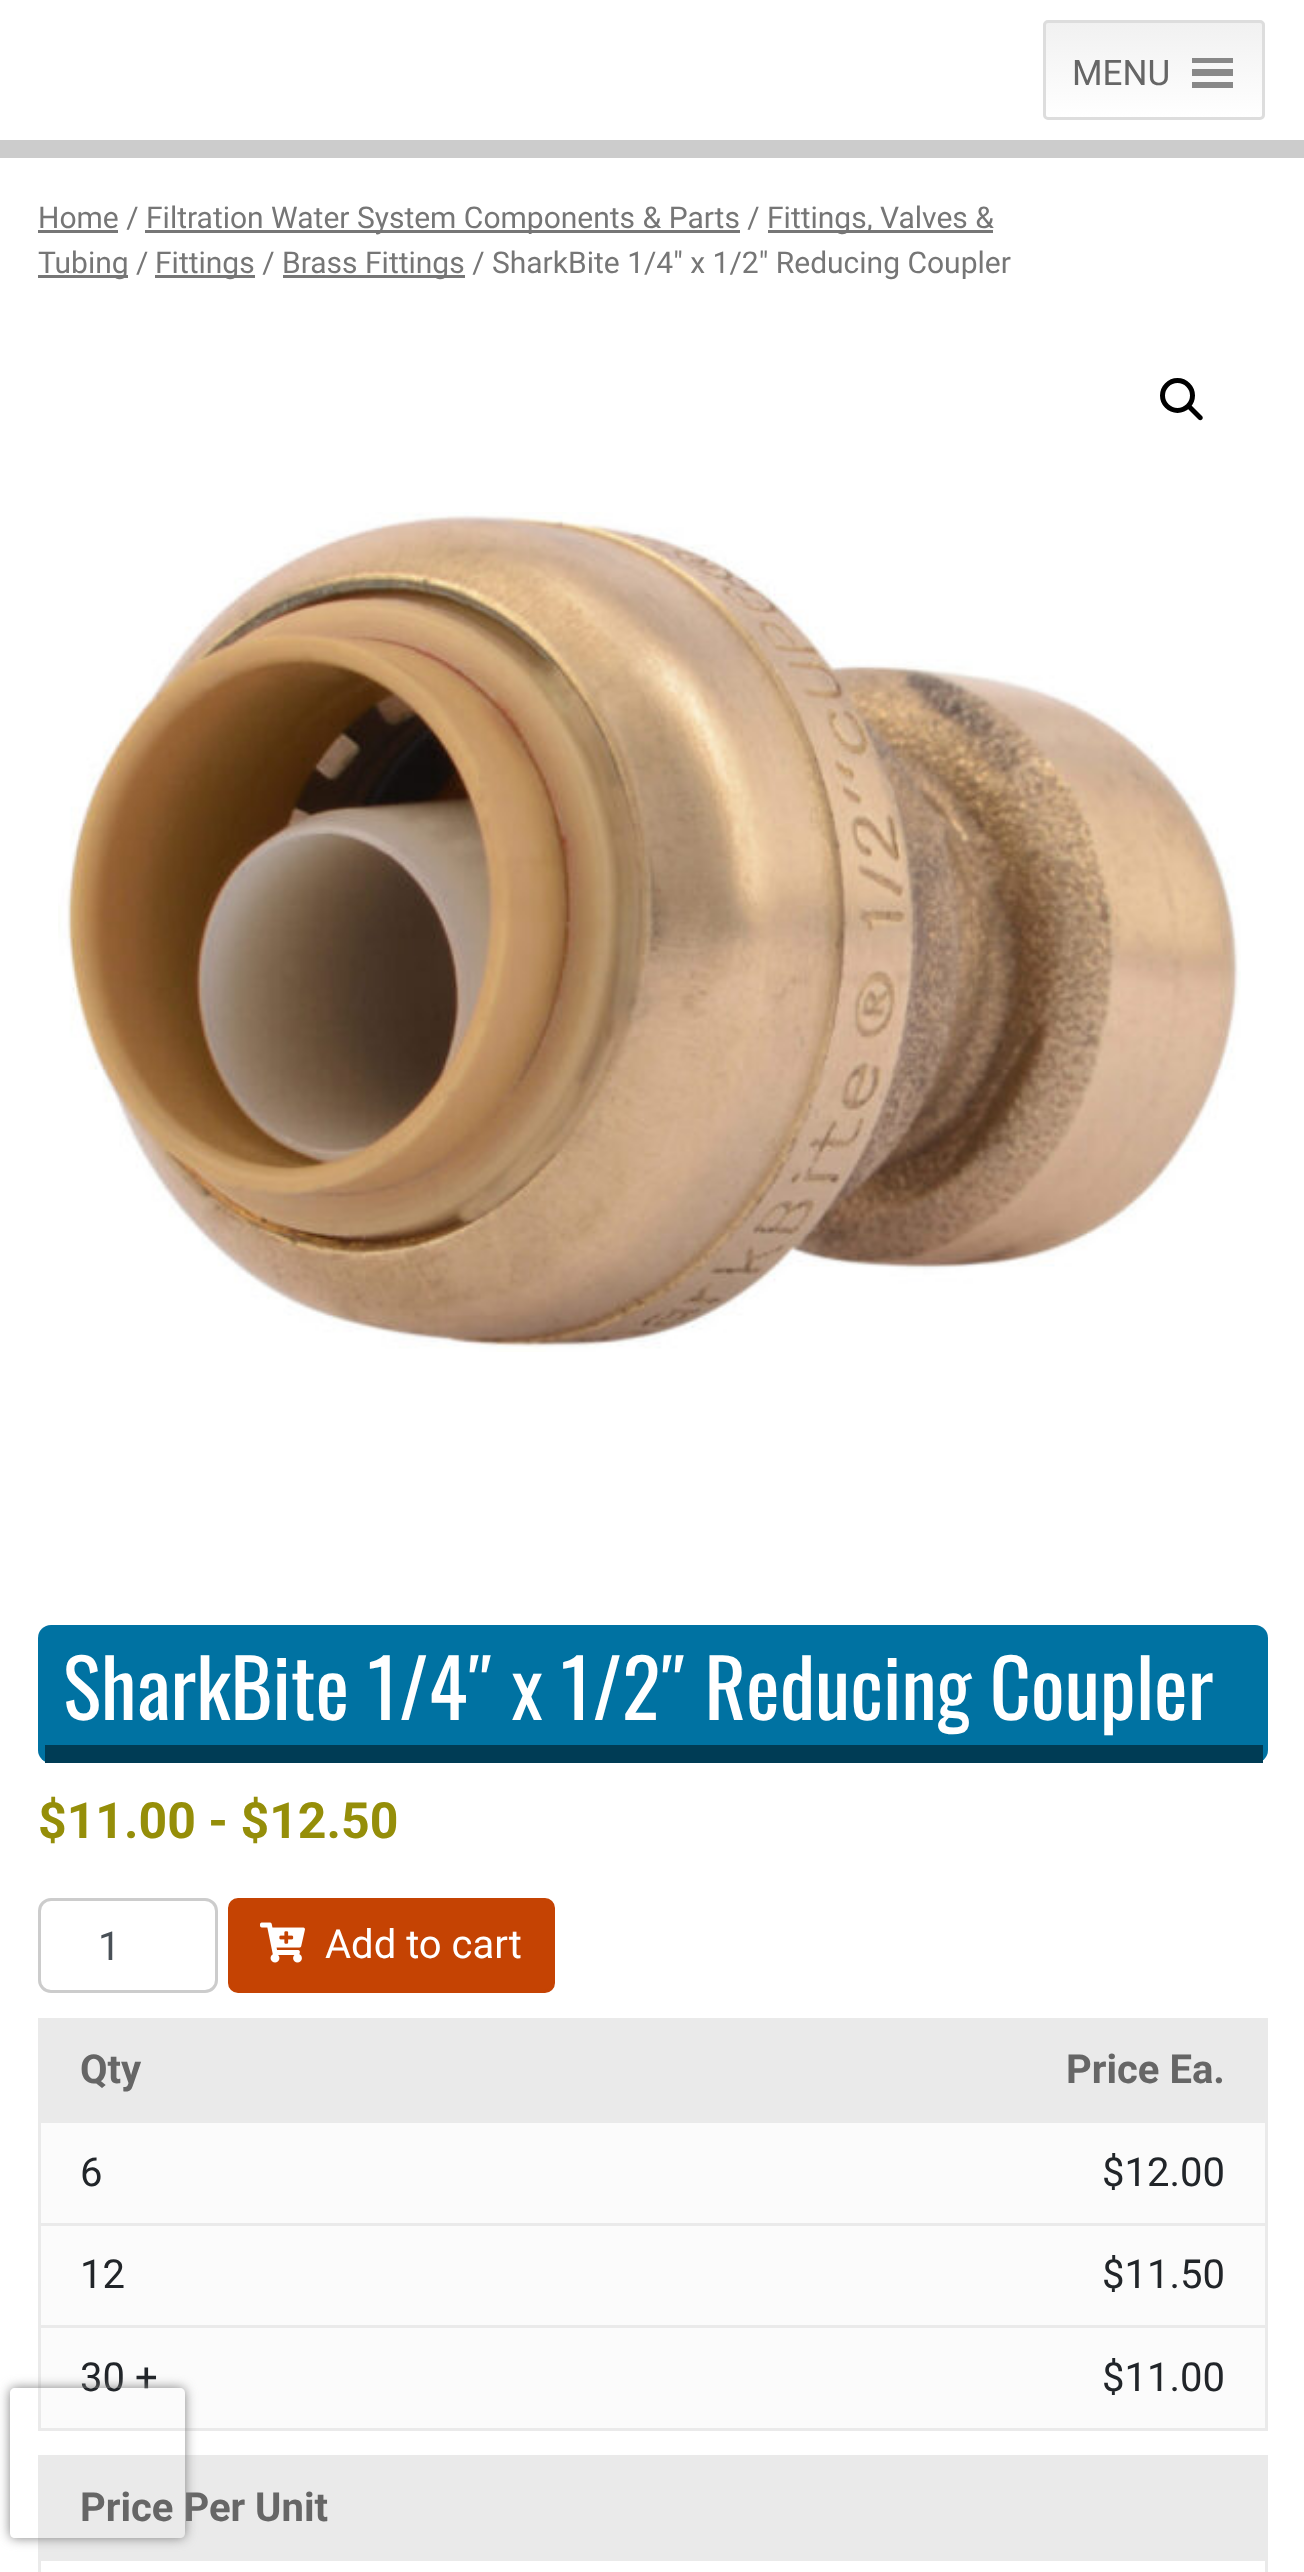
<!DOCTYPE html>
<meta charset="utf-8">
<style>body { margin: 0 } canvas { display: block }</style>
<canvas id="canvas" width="1304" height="2572"></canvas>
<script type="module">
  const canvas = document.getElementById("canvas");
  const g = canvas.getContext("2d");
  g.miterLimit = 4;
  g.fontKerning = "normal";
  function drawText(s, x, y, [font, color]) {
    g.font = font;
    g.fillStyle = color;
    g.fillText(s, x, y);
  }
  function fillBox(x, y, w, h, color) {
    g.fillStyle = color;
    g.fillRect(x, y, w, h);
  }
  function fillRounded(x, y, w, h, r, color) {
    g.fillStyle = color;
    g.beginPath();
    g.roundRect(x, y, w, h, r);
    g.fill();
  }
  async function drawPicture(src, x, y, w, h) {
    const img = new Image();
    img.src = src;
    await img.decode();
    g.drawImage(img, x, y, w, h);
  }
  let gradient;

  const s1 = ["35px Roboto", "#666666"];
  const s2 = ["30px Roboto", "#767676"];
  const s3 = ["80px Oswald", "#FFFFFF"];
  const s4 = ["bold 50px Roboto", "#958E09"];
  const s5 = ["40px Roboto", "#495057"];
  const s6 = ["40px Roboto", "#FFFFFF"];
  const s7 = ["bold 40px Roboto", "#666666"];
  const s8 = ["40px Roboto", "#212529"];

  fillBox(0, 0, 1304, 2572, "#FFFFFF");
  g.save();
  g.beginPath();
  g.roundRect(1043, 20, 222, 100, 5);
  g.clip();
  gradient = g.createLinearGradient(1154, 22, 1154, 118);
  gradient.addColorStop(0, "#F1F1F1");
  gradient.addColorStop(1, "#FFFFFF");
  g.fillStyle = gradient;
  g.fillRect(1043, 23, 222, 95);
  g.restore();
  g.beginPath();
  g.roundRect(1044.5, 21.5, 219, 97, 3.5);
  g.strokeStyle = "#DDDDDD";
  g.lineWidth = 3;
  g.stroke();
  drawText("MENU", 1072, 85, s1);
  g.fillStyle = "#888888";
  g.beginPath();
  g.moveTo(1192, 88);
  g.lineTo(1233, 88);
  g.lineTo(1233, 82);
  g.lineTo(1192, 82);
  g.closePath();
  g.moveTo(1192, 58);
  g.lineTo(1192, 63);
  g.lineTo(1233, 63);
  g.lineTo(1233, 58);
  g.closePath();
  g.moveTo(1192, 76);
  g.lineTo(1233, 76);
  g.lineTo(1233, 69);
  g.lineTo(1192, 69);
  g.closePath();
  g.fill();
  fillBox(0, 140, 1304, 18, "#CCCCCC");
  drawText("Home /", 38, 228, s2);
  fillBox(38, 230, 80, 3, "#767676");
  fillBox(145, 230, 595, 3, "#767676");
  drawText("Filtration Water System Components & Parts /", 146, 228, s2);
  fillBox(768, 230, 225, 3, "#767676");
  drawText("Fittings, Valves &", 767, 228, s2);
  fillBox(38, 275, 90, 3, "#767676");
  drawText("Tubing /", 38, 273, s2);
  fillBox(155, 275, 100, 3, "#767676");
  drawText("Fittings /", 155, 273, s2);
  fillBox(283, 275, 182, 3, "#767676");
  drawText("Brass Fittings / SharkBite 1/4″ x 1/2″ Reducing Coupler", 282, 273, s2);
  g.beginPath();
  g.arc(1177.5, 395.5, 15, 0, Math.PI * 2);
  g.strokeStyle = "#000000";
  g.lineWidth = 5;
  g.stroke();
  g.fillStyle = "#000000";
  g.beginPath();
  g.moveTo(1188, 405.5);
  g.bezierCurveTo(1189, 404.5, 1190.5, 404.5, 1191.5, 405.5);
  g.lineTo(1202, 416);
  g.bezierCurveTo(1203, 417, 1203, 418.5, 1202, 419.5);
  g.bezierCurveTo(1201, 420.5, 1199.5, 420.5, 1198.5, 419.5);
  g.lineTo(1188, 409);
  g.bezierCurveTo(1187, 408, 1187, 406.5, 1188, 405.5);
  g.closePath();
  g.fill();
  await drawPicture("pic1.png", 58, 512, 1183, 840);
  fillRounded(38, 1625, 1230, 138, 13, "#0072A2");
  fillBox(45, 1745, 1218, 18, "#003C55");
  drawText("SharkBite 1/4″ x 1/2″ Reducing Coupler", 63, 1720, s3);
  drawText("$11.00 - $12.50", 38, 1838, s4);
  g.beginPath();
  g.roundRect(39.5, 1899.5, 177, 92, 11.5);
  g.strokeStyle = "#CCCCCC";
  g.lineWidth = 3;
  g.stroke();
  drawText("1", 98, 1960, s5);
  g.fillStyle = "#C54303";
  g.beginPath();
  g.roundRect(229.5, 1899.5, 324, 92, 8.5);
  g.fill();
  g.strokeStyle = "#C54303";
  g.stroke();
  await drawPicture("pic2.png", 260, 1922, 45, 41);
  drawText("Add to cart", 325, 1958, s6);
  fillBox(38, 2018, 1230, 3, "#EAEAEA");
  fillBox(38, 2120, 1230, 3, "#EAEAEA");
  fillBox(38, 2223, 1230, 3, "#EAEAEA");
  fillBox(38, 2325, 1230, 3, "#EAEAEA");
  fillBox(1265, 2325, 3, 105, "#EAEAEA");
  fillBox(38, 2428, 1230, 3, "#EAEAEA");
  fillBox(38, 2325, 3, 105, "#EAEAEA");
  fillBox(38, 2223, 3, 105, "#EAEAEA");
  fillBox(38, 2120, 3, 105, "#EAEAEA");
  fillBox(38, 2018, 3, 105, "#EAEAEA");
  fillBox(41, 2021, 1227, 99, "#EAEAEA");
  drawText("Qty", 80, 2083, s7);
  drawText("Price Ea.", 1066, 2083, s7);
  fillBox(1265, 2223, 3, 105, "#EAEAEA");
  fillBox(1265, 2120, 3, 105, "#EAEAEA");
  fillBox(41, 2123, 1224, 100, "#FBFBFB");
  drawText("6", 80, 2186, s8);
  drawText("$12.00", 1102, 2186, s8);
  fillBox(41, 2226, 1224, 99, "#FBFBFB");
  drawText("12", 80, 2288, s8);
  drawText("$11.50", 1102, 2288, s8);
  fillBox(41, 2328, 1224, 100, "#FBFBFB");
  drawText("30 +", 80, 2391, s8);
  drawText("$11.00", 1102, 2391, s8);
  fillBox(38, 2455, 1230, 3, "#EAEAEA");
  fillBox(38, 2558, 1230, 3, "#EAEAEA");
  fillBox(38, 2558, 3, 14, "#EAEAEA");
  fillBox(38, 2455, 3, 105, "#EAEAEA");
  fillBox(41, 2458, 1227, 100, "#EAEAEA");
  drawText("Price Per Unit", 80, 2521, s7);
  fillBox(1265, 2558, 3, 14, "#EAEAEA");
  g.save();
  g.beginPath();
  g.moveTo(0, 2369);
  g.lineTo(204, 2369);
  g.lineTo(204, 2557);
  g.lineTo(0, 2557);
  g.closePath();
  g.moveTo(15, 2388);
  g.lineTo(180, 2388);
  g.bezierCurveTo(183, 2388, 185, 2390, 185, 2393);
  g.lineTo(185, 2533);
  g.bezierCurveTo(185, 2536, 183, 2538, 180, 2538);
  g.lineTo(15, 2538);
  g.bezierCurveTo(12, 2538, 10, 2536, 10, 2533);
  g.lineTo(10, 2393);
  g.bezierCurveTo(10, 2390, 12, 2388, 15, 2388);
  g.closePath();
  g.clip("evenodd");
  g.fillStyle = "#808080";
  g.filter = "blur(6px)";
  g.beginPath();
  g.roundRect(10, 2388, 175, 150, 5);
  g.fill();
  g.filter = "none";
  g.restore();
</script>
